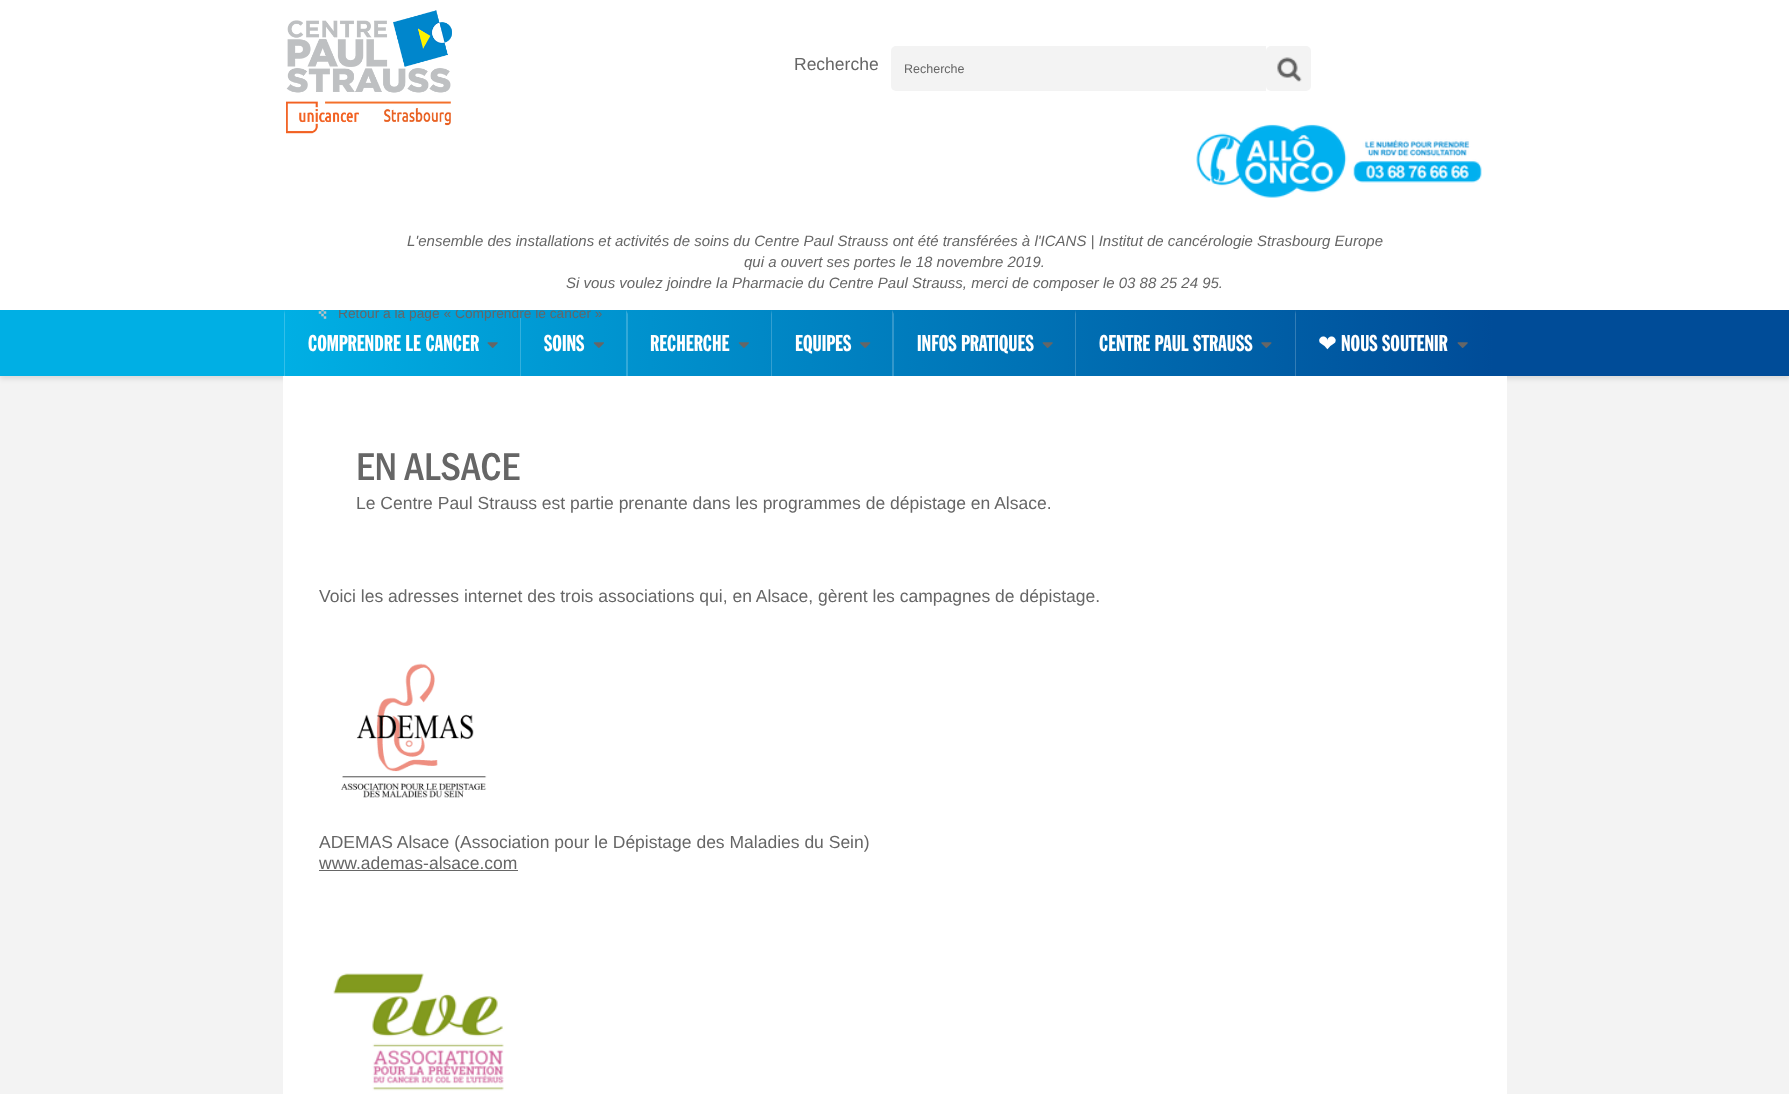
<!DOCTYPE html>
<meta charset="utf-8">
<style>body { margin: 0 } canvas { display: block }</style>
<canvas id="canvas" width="1789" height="1094"></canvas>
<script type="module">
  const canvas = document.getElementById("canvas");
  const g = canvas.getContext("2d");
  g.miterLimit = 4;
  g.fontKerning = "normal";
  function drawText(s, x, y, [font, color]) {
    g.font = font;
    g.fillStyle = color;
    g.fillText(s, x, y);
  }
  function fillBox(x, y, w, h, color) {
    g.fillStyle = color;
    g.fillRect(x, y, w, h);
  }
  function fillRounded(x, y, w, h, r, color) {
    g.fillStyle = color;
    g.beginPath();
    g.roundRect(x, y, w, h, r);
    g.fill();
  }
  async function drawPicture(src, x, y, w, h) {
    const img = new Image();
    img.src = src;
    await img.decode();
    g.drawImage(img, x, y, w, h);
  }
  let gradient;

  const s1 = ["13.75px Liberation Sans", "#666666"];
  const s2 = ["17.5px Liberation Sans", "#666666"];
  const s3 = ["12.5px Liberation Sans", "#666666"];
  const s4 = ["italic 15px Liberation Sans", "#666666"];
  const s5 = ["500 40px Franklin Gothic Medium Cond", "#666666"];
  const s6 = ["22.5px Franklin Gothic", "#FFFFFF"];
  const s7 = ["22.5px DejaVu Sans", "#FFFFFF"];

  fillBox(0, 0, 1789, 1094, "#F3F3F3");
  g.fillStyle = "rgba(0, 0, 0, 0.1)";
  g.filter = "blur(2.5px)";
  g.beginPath();
  g.rect(0, 313, 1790, 66);
  g.fill();
  g.filter = "none";
  gradient = g.createLinearGradient(284, 343, 1506, 343);
  gradient.addColorStop(0, "#00AFE4");
  gradient.addColorStop(0.99, "#004C98");
  g.fillStyle = gradient;
  g.fillRect(284, 310, 1222, 66);
  g.fillStyle = "#33B0DD";
  g.beginPath();
  g.moveTo(520, 376);
  g.lineTo(520, 310);
  g.lineTo(521, 314);
  g.lineTo(521, 376);
  g.closePath();
  g.fill();
  drawText("Retour à la page « Comprendre le cancer »", 338, 318, s1);
  fillBox(0, 0, 1789, 310, "#FFFFFF");
  await drawPicture("pic1.png", 286, 10, 166, 124);
  drawText("Recherche", 794, 70, s2);
  g.fillStyle = "#F3F3F3";
  g.beginPath();
  g.roundRect(891, 46, 375, 45, [5, 0, 0, 5]);
  g.fill();
  drawText("Recherche", 904, 73, s3);
  fillRounded(1266, 46, 45, 45, 5, "#F3F3F3");
  await drawPicture("pic2.png", 1277, 57, 25, 25);
  await drawPicture("pic3.png", 1196, 124, 286, 74);
  drawText("L'ensemble des installations et activités de soins du Centre Paul Strauss ont été transférées à l'ICANS | Institut de cancérologie Strasbourg Europe", 407, 246, s4);
  drawText("qui a ouvert ses portes le 18 novembre 2019.", 744, 267, s4);
  drawText("Si vous voulez joindre la Pharmacie du Centre Paul Strauss, merci de composer le 03 88 25 24 95.", 566, 288, s4);
  fillBox(283, 376, 1224, 718, "#FFFFFF");
  await drawPicture("pic4.png", 318, 310, 9, 9);
  drawText("EN ALSACE", 356, 480, s5);
  drawText("Le Centre Paul Strauss est partie prenante dans les programmes de dépistage en Alsace.", 356, 509, s2);
  drawText("Voici les adresses internet des trois associations qui, en Alsace, gèrent les campagnes de dépistage.", 319, 602, s2);
  await drawPicture("pic5.png", 341, 663, 146, 135);
  drawText("ADEMAS Alsace (Association pour le Dépistage des Maladies du Sein)", 319, 848, s2);
  drawText("www.ademas-alsace.com", 319, 869, s2);
  fillBox(319, 870, 199, 1, "#666666");
  await drawPicture("pic6.png", 333, 973, 171, 118);
  fillBox(0, 310, 284, 66, "#00AFE4");
  fillBox(1506, 310, 283, 66, "#004C98");
  g.fillStyle = "#33BFE9";
  g.beginPath();
  g.moveTo(284, 376);
  g.lineTo(284, 310);
  g.lineTo(285, 314);
  g.lineTo(285, 376);
  g.closePath();
  g.fill();
  drawText("COMPRENDRE LE CANCER", 308, 351, s6);
  await drawPicture("pic7.png", 487, 342, 11, 6);
  drawText("SOINS", 544, 351, s6);
  await drawPicture("pic8.png", 593, 342, 11, 6);
  g.fillStyle = "#33A9D8";
  g.beginPath();
  g.moveTo(626, 376);
  g.lineTo(626, 310);
  g.lineTo(628, 314);
  g.lineTo(628, 376);
  g.closePath();
  g.fill();
  drawText("RECHERCHE", 650, 351, s6);
  await drawPicture("pic9.png", 738, 342, 11, 6);
  g.fillStyle = "#339FD1";
  g.beginPath();
  g.moveTo(771, 376);
  g.lineTo(771, 310);
  g.lineTo(772, 314);
  g.lineTo(772, 376);
  g.closePath();
  g.fill();
  drawText("EQUIPES", 795, 351, s6);
  await drawPicture("pic10.png", 860, 342, 11, 6);
  g.fillStyle = "#3397CB";
  g.beginPath();
  g.moveTo(892, 376);
  g.lineTo(892, 310);
  g.lineTo(894, 314);
  g.lineTo(894, 376);
  g.closePath();
  g.fill();
  drawText("INFOS PRATIQUES", 917, 351, s6);
  await drawPicture("pic11.png", 1042, 342, 11, 6);
  g.fillStyle = "#338BC1";
  g.beginPath();
  g.moveTo(1075, 376);
  g.lineTo(1075, 310);
  g.lineTo(1076, 314);
  g.lineTo(1076, 376);
  g.closePath();
  g.fill();
  drawText("CENTRE PAUL STRAUSS", 1099, 351, s6);
  await drawPicture("pic12.png", 1261, 342, 11, 6);
  g.fillStyle = "#337DB6";
  g.beginPath();
  g.moveTo(1295, 376);
  g.lineTo(1295, 310);
  g.lineTo(1296, 314);
  g.lineTo(1296, 376);
  g.closePath();
  g.fill();
  drawText("❤", 1318, 351, s7);
  drawText("NOUS SOUTENIR", 1341, 351, s6);
  await drawPicture("pic13.png", 1457, 342, 11, 6);
</script>
